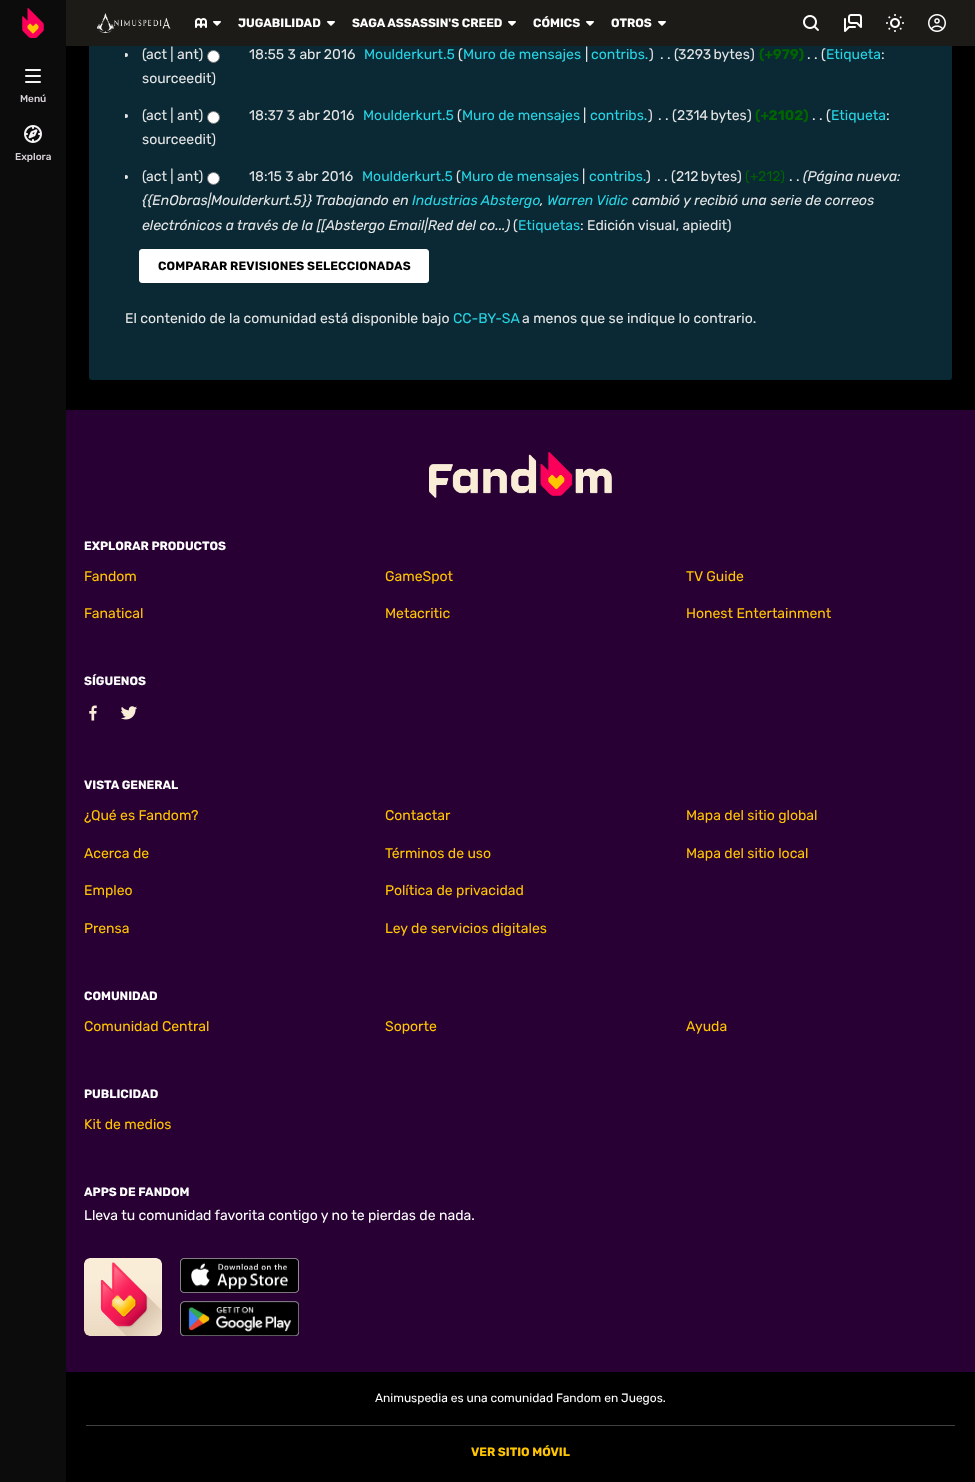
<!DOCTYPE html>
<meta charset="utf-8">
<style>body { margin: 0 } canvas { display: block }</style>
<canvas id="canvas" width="975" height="1482"></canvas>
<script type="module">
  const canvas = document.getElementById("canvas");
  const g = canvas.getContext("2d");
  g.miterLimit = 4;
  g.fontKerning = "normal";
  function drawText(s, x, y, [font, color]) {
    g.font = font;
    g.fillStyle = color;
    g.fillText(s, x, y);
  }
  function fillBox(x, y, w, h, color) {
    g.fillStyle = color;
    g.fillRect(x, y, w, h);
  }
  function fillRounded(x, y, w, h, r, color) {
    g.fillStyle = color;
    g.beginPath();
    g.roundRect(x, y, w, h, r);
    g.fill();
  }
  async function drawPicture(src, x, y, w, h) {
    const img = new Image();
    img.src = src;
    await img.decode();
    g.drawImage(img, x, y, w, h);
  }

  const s1 = ["bold 12px Rubik", "#FFFFFF"];
  const s2 = ["500 10px Rubik", "#D6D0D5"];
  const s3 = ["14px Rubik", "#E6E6E6"];
  const s4 = ["14px Rubik", "#28D5E5"];
  const s5 = ["bold 14px Rubik", "#006500"];
  const s6 = ["14px Rubik", "#006500"];
  const s7 = ["italic 14px Rubik", "#E6E6E6"];
  const s8 = ["italic 14px Rubik", "#28D5E5"];
  const s9 = ["bold 12px Rubik", "#000000"];
  const s10 = ["14px Rubik", "#FFC500"];
  const s11 = ["14px Rubik", "#FFFFFF"];
  const s12 = ["12px Rubik", "#FFFFFF"];
  const s13 = ["bold 12px Rubik", "#FFC500"];

  fillBox(0, 0, 975, 1482, "#000000");
  fillRounded(89, -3, 863, 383, 3, "#0A2934");
  fillBox(66, 0, 909, 46, "#1C1B17");
  fillBox(0, 0, 66, 1482, "#0C0C0C");
  await drawPicture("pic1.png", 22, 8, 22, 30);
  await drawPicture("pic2.png", 97, 13, 74, 20);
  await drawPicture("pic3.png", 195, 18, 12, 10);
  await drawPicture("pic4.png", 213, 21, 8, 5);
  drawText("JUGABILIDAD", 238, 27, s1);
  await drawPicture("pic4.png", 327, 21, 8, 5);
  drawText("SAGA ASSASSIN'S CREED", 352, 27, s1);
  await drawPicture("pic4.png", 508, 21, 8, 5);
  drawText("CÓMICS", 533, 27, s1);
  await drawPicture("pic4.png", 586, 21, 8, 5);
  drawText("OTROS", 611, 27, s1);
  await drawPicture("pic4.png", 658, 21, 8, 5);
  await drawPicture("pic5.png", 803, 15, 16, 16);
  await drawPicture("pic6.png", 844, 14, 18, 18);
  await drawPicture("pic7.png", 886, 14, 18, 18);
  await drawPicture("pic8.png", 928, 14, 18, 18);
  await drawPicture("pic9.png", 25, 69, 16, 14);
  drawText("Menú", 20, 102, s2);
  await drawPicture("pic10.png", 24, 125, 18, 18);
  drawText("Explora", 15, 160, s2);
  g.save();
  g.beginPath();
  g.rect(125, 0, 791, 283);
  g.clip();
  g.fillStyle = "#E6E6E6";
  g.beginPath();
  g.arc(126, 55, 2, 0, Math.PI * 2);
  g.fill();
  g.restore();
  drawText("(", 142, 59, s3);
  drawText("act | ant)", 146, 59, s3);
  g.fillStyle = "#FFFFFF";
  g.beginPath();
  g.arc(213.5, 56.5, 6, 0, Math.PI * 2);
  g.fill();
  g.strokeStyle = "#767676";
  g.stroke();
  drawText("18:55 3 abr 2016", 249, 59, s3);
  drawText("Moulderkurt.5", 364, 59, s4);
  drawText("(", 458, 59, s3);
  drawText("Muro de mensajes", 463, 59, s4);
  drawText("|", 585, 59, s3);
  drawText("contribs.", 591, 59, s4);
  drawText(")", 649, 59, s3);
  drawText(". . (", 660, 59, s3);
  g.wordSpacing = "-1px";
  drawText("3293 bytes", 678, 59, s3);
  g.wordSpacing = "0px";
  drawText(")", 750, 59, s3);
  drawText("(+979)", 759, 59, s5);
  drawText(". . (", 807, 59, s3);
  drawText("Etiqueta", 826, 59, s4);
  drawText(":", 881, 59, s3);
  drawText("sourceedit)", 142, 83, s3);
  g.save();
  g.beginPath();
  g.rect(125, 0, 791, 283);
  g.clip();
  g.beginPath();
  g.arc(126, 116, 2, 0, Math.PI * 2);
  g.fill();
  g.restore();
  drawText("(", 142, 120, s3);
  drawText("act | ant)", 146, 120, s3);
  g.fillStyle = "#FFFFFF";
  g.beginPath();
  g.arc(213.5, 117.5, 6, 0, Math.PI * 2);
  g.fill();
  g.stroke();
  drawText("18:37 3 abr 2016", 249, 120, s3);
  drawText("Moulderkurt.5", 363, 120, s4);
  drawText("(", 457, 120, s3);
  drawText("Muro de mensajes", 462, 120, s4);
  drawText("|", 583, 120, s3);
  drawText("contribs.", 590, 120, s4);
  drawText(")", 648, 120, s3);
  drawText(". . (", 658, 120, s3);
  g.wordSpacing = "-1px";
  drawText("2314 bytes", 677, 120, s3);
  g.wordSpacing = "0px";
  drawText(")", 747, 120, s3);
  drawText("(+2102)", 755, 120, s5);
  drawText(". . (", 812, 120, s3);
  drawText("Etiqueta", 831, 120, s4);
  drawText(":", 886, 120, s3);
  drawText("sourceedit)", 142, 144, s3);
  g.save();
  g.beginPath();
  g.rect(125, 0, 791, 283);
  g.clip();
  g.beginPath();
  g.arc(126, 177, 2, 0, Math.PI * 2);
  g.fill();
  g.restore();
  drawText("(", 142, 181, s3);
  drawText("act | ant)", 146, 181, s3);
  g.fillStyle = "#FFFFFF";
  g.beginPath();
  g.arc(213.5, 178.5, 6, 0, Math.PI * 2);
  g.fill();
  g.stroke();
  drawText("18:15 3 abr 2016", 249, 181, s3);
  drawText("Moulderkurt.5", 362, 181, s4);
  drawText("(", 456, 181, s3);
  drawText("Muro de mensajes", 461, 181, s4);
  drawText("|", 582, 181, s3);
  drawText("contribs.", 589, 181, s4);
  drawText(")", 646, 181, s3);
  drawText(". . (", 657, 181, s3);
  g.wordSpacing = "-1px";
  drawText("212 bytes", 676, 181, s3);
  g.wordSpacing = "0px";
  drawText(")", 737, 181, s3);
  drawText("(+212)", 745, 181, s6);
  drawText("(Página nueva:", 803, 181, s7);
  drawText(". .", 789, 181, s3);
  drawText("{{EnObras|Moulderkurt.5}}", 142, 205, s7);
  drawText("Trabajando en", 315, 205, s7);
  drawText("Industrias Abstergo", 412, 205, s8);
  drawText(",", 540, 205, s7);
  drawText("Warren Vidic", 547, 205, s8);
  drawText("cambió y recibió una serie de correos", 632, 205, s7);
  drawText("electrónicos a través de la [[Abstergo Email|Red del co...)", 142, 230, s7);
  drawText("(", 513, 230, s3);
  drawText("Etiquetas", 518, 230, s4);
  drawText(": Edición visual, apiedit)", 580, 230, s3);
  g.fillStyle = "#FFFFFF";
  g.beginPath();
  g.roundRect(139.5, 249.5, 289, 33, 2.5);
  g.fill();
  g.strokeStyle = "#FFFFFF";
  g.stroke();
  g.letterSpacing = "0.15px";
  drawText("COMPARAR REVISIONES SELECCIONADAS", 158, 270, s9);
  g.letterSpacing = "0px";
  drawText("El contenido de la comunidad está disponible bajo", 125, 323, s3);
  drawText("CC-BY-SA", 453, 323, s4);
  drawText("a menos que se indique lo contrario.", 522, 323, s3);
  fillBox(66, 410, 909, 962, "#280033");
  await drawPicture("pic11.png", 429, 452, 183, 46);
  drawText("EXPLORAR PRODUCTOS", 84, 550, s1);
  drawText("Fandom", 84, 581, s10);
  drawText("GameSpot", 385, 581, s10);
  drawText("TV Guide", 686, 581, s10);
  drawText("Fanatical", 84, 618, s10);
  drawText("Metacritic", 385, 618, s10);
  drawText("Honest Entertainment", 686, 618, s10);
  drawText("SÍGUENOS", 84, 685, s1);
  await drawPicture("pic12.png", 89, 705, 8, 16);
  await drawPicture("pic13.png", 121, 706, 17, 14);
  drawText("VISTA GENERAL", 84, 789, s1);
  drawText("¿Qué es Fandom?", 84, 820, s10);
  drawText("Contactar", 385, 820, s10);
  drawText("Mapa del sitio global", 686, 820, s10);
  drawText("Acerca de", 84, 858, s10);
  drawText("Términos de uso", 385, 858, s10);
  drawText("Mapa del sitio local", 686, 858, s10);
  drawText("Empleo", 84, 895, s10);
  drawText("Política de privacidad", 385, 895, s10);
  drawText("Prensa", 84, 933, s10);
  drawText("Ley de servicios digitales", 385, 933, s10);
  drawText("COMUNIDAD", 84, 1000, s1);
  drawText("Comunidad Central", 84, 1031, s10);
  drawText("Soporte", 385, 1031, s10);
  drawText("Ayuda", 686, 1031, s10);
  drawText("PUBLICIDAD", 84, 1098, s1);
  drawText("Kit de medios", 84, 1129, s10);
  drawText("APPS DE FANDOM", 84, 1196, s1);
  drawText("Lleva tu comunidad favorita contigo y no te pierdas de nada.", 84, 1220, s11);
  await drawPicture("pic14.png", 84, 1258, 78, 78);
  await drawPicture("pic15.png", 180, 1258, 119, 35);
  await drawPicture("pic16.png", 180, 1301, 119, 35);
  drawText("Animuspedia es una comunidad Fandom en Juegos.", 375, 1402, s12);
  fillBox(86, 1425, 869, 1, "#404040");
  drawText("VER SITIO MÓVIL", 471, 1456, s13);
</script>
